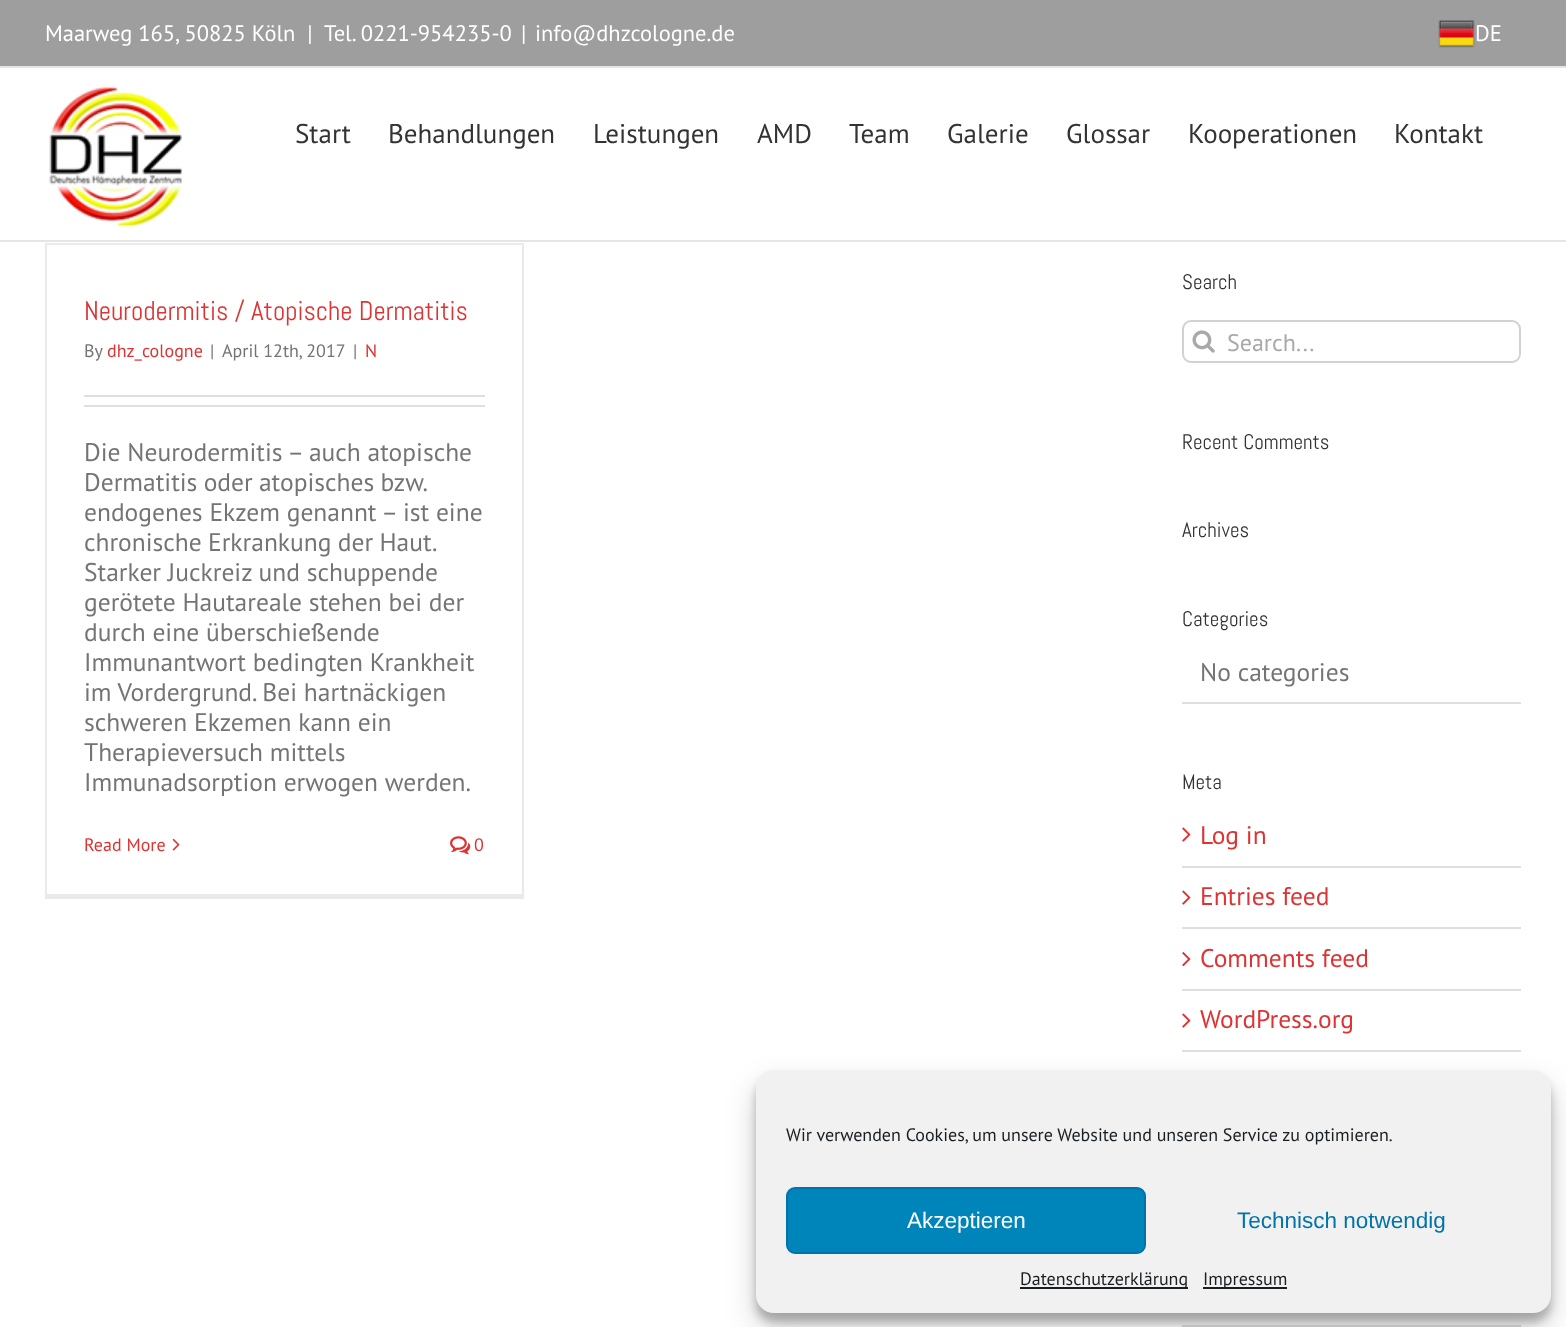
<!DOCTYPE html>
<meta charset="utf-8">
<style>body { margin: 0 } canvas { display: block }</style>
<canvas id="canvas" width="1566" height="1327"></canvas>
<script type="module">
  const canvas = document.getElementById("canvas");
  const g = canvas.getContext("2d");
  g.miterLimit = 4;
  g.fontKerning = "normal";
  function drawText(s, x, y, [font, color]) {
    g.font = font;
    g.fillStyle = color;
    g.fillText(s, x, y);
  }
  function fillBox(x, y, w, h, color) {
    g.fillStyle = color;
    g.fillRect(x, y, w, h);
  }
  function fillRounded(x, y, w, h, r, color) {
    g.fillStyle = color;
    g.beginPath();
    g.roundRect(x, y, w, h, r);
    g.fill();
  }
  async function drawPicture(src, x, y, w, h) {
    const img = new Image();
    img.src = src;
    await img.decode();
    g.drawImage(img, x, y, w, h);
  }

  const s1 = ["22.5px PT Sans", "#FFFFFF"];
  const s2 = ["27px PT Sans", "#333333"];
  const s3 = ["27px Abel", "#DD3333"];
  const s4 = ["18px PT Sans", "#747474"];
  const s5 = ["18px PT Sans", "#DD3333"];
  const s6 = ["25.5px PT Sans", "#747474"];
  const s7 = ["21px Abel", "#333333"];
  const s8 = ["24px PT Sans", "#AAA9A9"];
  const s9 = ["25.5px PT Sans", "#DD3333"];
  const s10 = ["18px PT Sans", "#191E23"];
  const s11 = ["22.5px Liberation Sans", "#FFFFFF"];
  const s12 = ["22.5px Liberation Sans", "#0073AA"];

  fillBox(0, 0, 1566, 1327, "#FFFFFF");
  fillBox(0, 0, 1566, 66, "#9E9E9E");
  fillBox(0, 66, 1566, 2, "#E5E5E5");
  drawText("Maarweg 165, 50825 Köln  |  Tel. 0221-954235-0", 45, 41, s1);
  drawText("|", 521, 41, s1);
  drawText("info@dhzcologne.de", 535, 41, s1);
  await drawPicture("pic1.png", 1438, 20, 37, 28);
  drawText("DE", 1475, 41, s1);
  fillBox(0, 240, 1566, 2, "#E5E5E5");
  await drawPicture("pic2.png", 49, 86, 133, 141);
  drawText("Start", 295, 143, s2);
  drawText("Behandlungen", 388, 143, s2);
  drawText("Leistungen", 593, 143, s2);
  drawText("AMD", 757, 143, s2);
  drawText("Team", 849, 143, s2);
  drawText("Galerie", 947, 143, s2);
  drawText("Glossar", 1066, 143, s2);
  drawText("Kooperationen", 1188, 143, s2);
  drawText("Kontakt", 1394, 143, s2);
  fillBox(45, 243, 479, 2, "#EBEAEA");
  fillBox(522, 243, 2, 656, "#EBEAEA");
  fillBox(45, 894, 479, 5, "#EBEAEA");
  fillBox(45, 243, 2, 656, "#EBEAEA");
  drawText("Neurodermitis / Atopische Dermatitis", 84, 320, s3);
  drawText("By", 84, 357, s4);
  drawText("dhz_cologne", 107, 357, s5);
  drawText("|", 210, 357, s4);
  drawText("April 12th, 2017", 222, 357, s4);
  drawText("|", 353, 357, s4);
  drawText("N", 365, 357, s5);
  fillBox(84, 395, 401, 2, "#E0DEDE");
  fillBox(84, 405, 401, 2, "#E0DEDE");
  drawText("Die Neurodermitis – auch atopische", 84, 461, s6);
  g.wordSpacing = "-0.5px";
  drawText("Dermatitis oder atopisches bzw.", 84, 491, s6);
  g.wordSpacing = "0px";
  drawText("endogenes Ekzem genannt – ist eine", 84, 521, s6);
  g.wordSpacing = "-0.5px";
  drawText("chronische Erkrankung der Haut.", 84, 551, s6);
  g.wordSpacing = "0px";
  drawText("Starker Juckreiz und schuppende", 84, 581, s6);
  drawText("gerötete Hautareale stehen bei der", 84, 611, s6);
  drawText("durch eine überschießende", 84, 641, s6);
  drawText("Immunantwort bedingten Krankheit", 84, 671, s6);
  drawText("im Vordergrund. Bei hartnäckigen", 84, 701, s6);
  drawText("schweren Ekzemen kann ein", 84, 731, s6);
  drawText("Therapieversuch mittels", 84, 761, s6);
  drawText("Immunadsorption erwogen werden.", 84, 791, s6);
  drawText("Read More", 84, 851, s5);
  await drawPicture("pic3.png", 172, 838, 8, 13);
  await drawPicture("pic4.png", 450, 836, 21, 19);
  drawText("0", 474, 851, s5);
  drawText("Search", 1182, 289, s7);
  g.beginPath();
  g.roundRect(1183, 321, 337, 41, 8);
  g.strokeStyle = "#D2D2D2";
  g.lineWidth = 2;
  g.stroke();
  await drawPicture("pic5.png", 1192, 330, 23, 23);
  drawText("Search...", 1227, 351, s8);
  drawText("Recent Comments", 1182, 449, s7);
  drawText("Archives", 1182, 537, s7);
  drawText("Categories", 1182, 626, s7);
  fillBox(1182, 702, 339, 2, "#E0DEDE");
  drawText("No categories", 1200, 681, s6);
  drawText("Meta", 1182, 789, s7);
  fillBox(1182, 866, 339, 2, "#E0DEDE");
  await drawPicture("pic6.png", 1182, 827, 9, 15);
  drawText("Log in", 1200, 844, s9);
  fillBox(1182, 927, 339, 2, "#E0DEDE");
  await drawPicture("pic6.png", 1182, 890, 9, 15);
  drawText("Entries feed", 1200, 905, s9);
  fillBox(1182, 989, 339, 2, "#E0DEDE");
  await drawPicture("pic7.png", 1182, 952, 9, 15);
  drawText("Comments feed", 1200, 967, s9);
  fillBox(1182, 1050, 339, 2, "#E0DEDE");
  await drawPicture("pic6.png", 1182, 1013, 9, 15);
  drawText("WordPress.org", 1200, 1028, s9);
  fillBox(1182, 1325, 339, 2, "#E0DEDE");
  g.fillStyle = "rgba(0, 0, 0, 0.23)";
  g.filter = "blur(4.5px)";
  g.beginPath();
  g.roundRect(756, 1079, 795, 243, 18);
  g.fill();
  g.filter = "none";
  g.fillStyle = "rgba(0, 0, 0, 0.19)";
  g.filter = "blur(15px)";
  g.beginPath();
  g.roundRect(756, 1085, 795, 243, 18);
  g.fill();
  g.filter = "none";
  fillRounded(756, 1070, 795, 243, 18, "#F1F1F1");
  drawText("Wir verwenden Cookies, um unsere Website und unseren Service zu optimieren.", 786, 1141, s10);
  g.fillStyle = "#0085BA";
  g.beginPath();
  g.roundRect(787, 1188, 358, 65, 8);
  g.fill();
  g.strokeStyle = "#0073AA";
  g.stroke();
  drawText("Akzeptieren", 907, 1228, s11);
  drawText("Technisch notwendig", 1237, 1228, s12);
  fillBox(1020, 1287, 168, 2, "#191E23");
  drawText("Datenschutzerklärung", 1020, 1285, s10);
  fillBox(1203, 1287, 84, 2, "#191E23");
  drawText("Impressum", 1203, 1285, s10);
</script>
